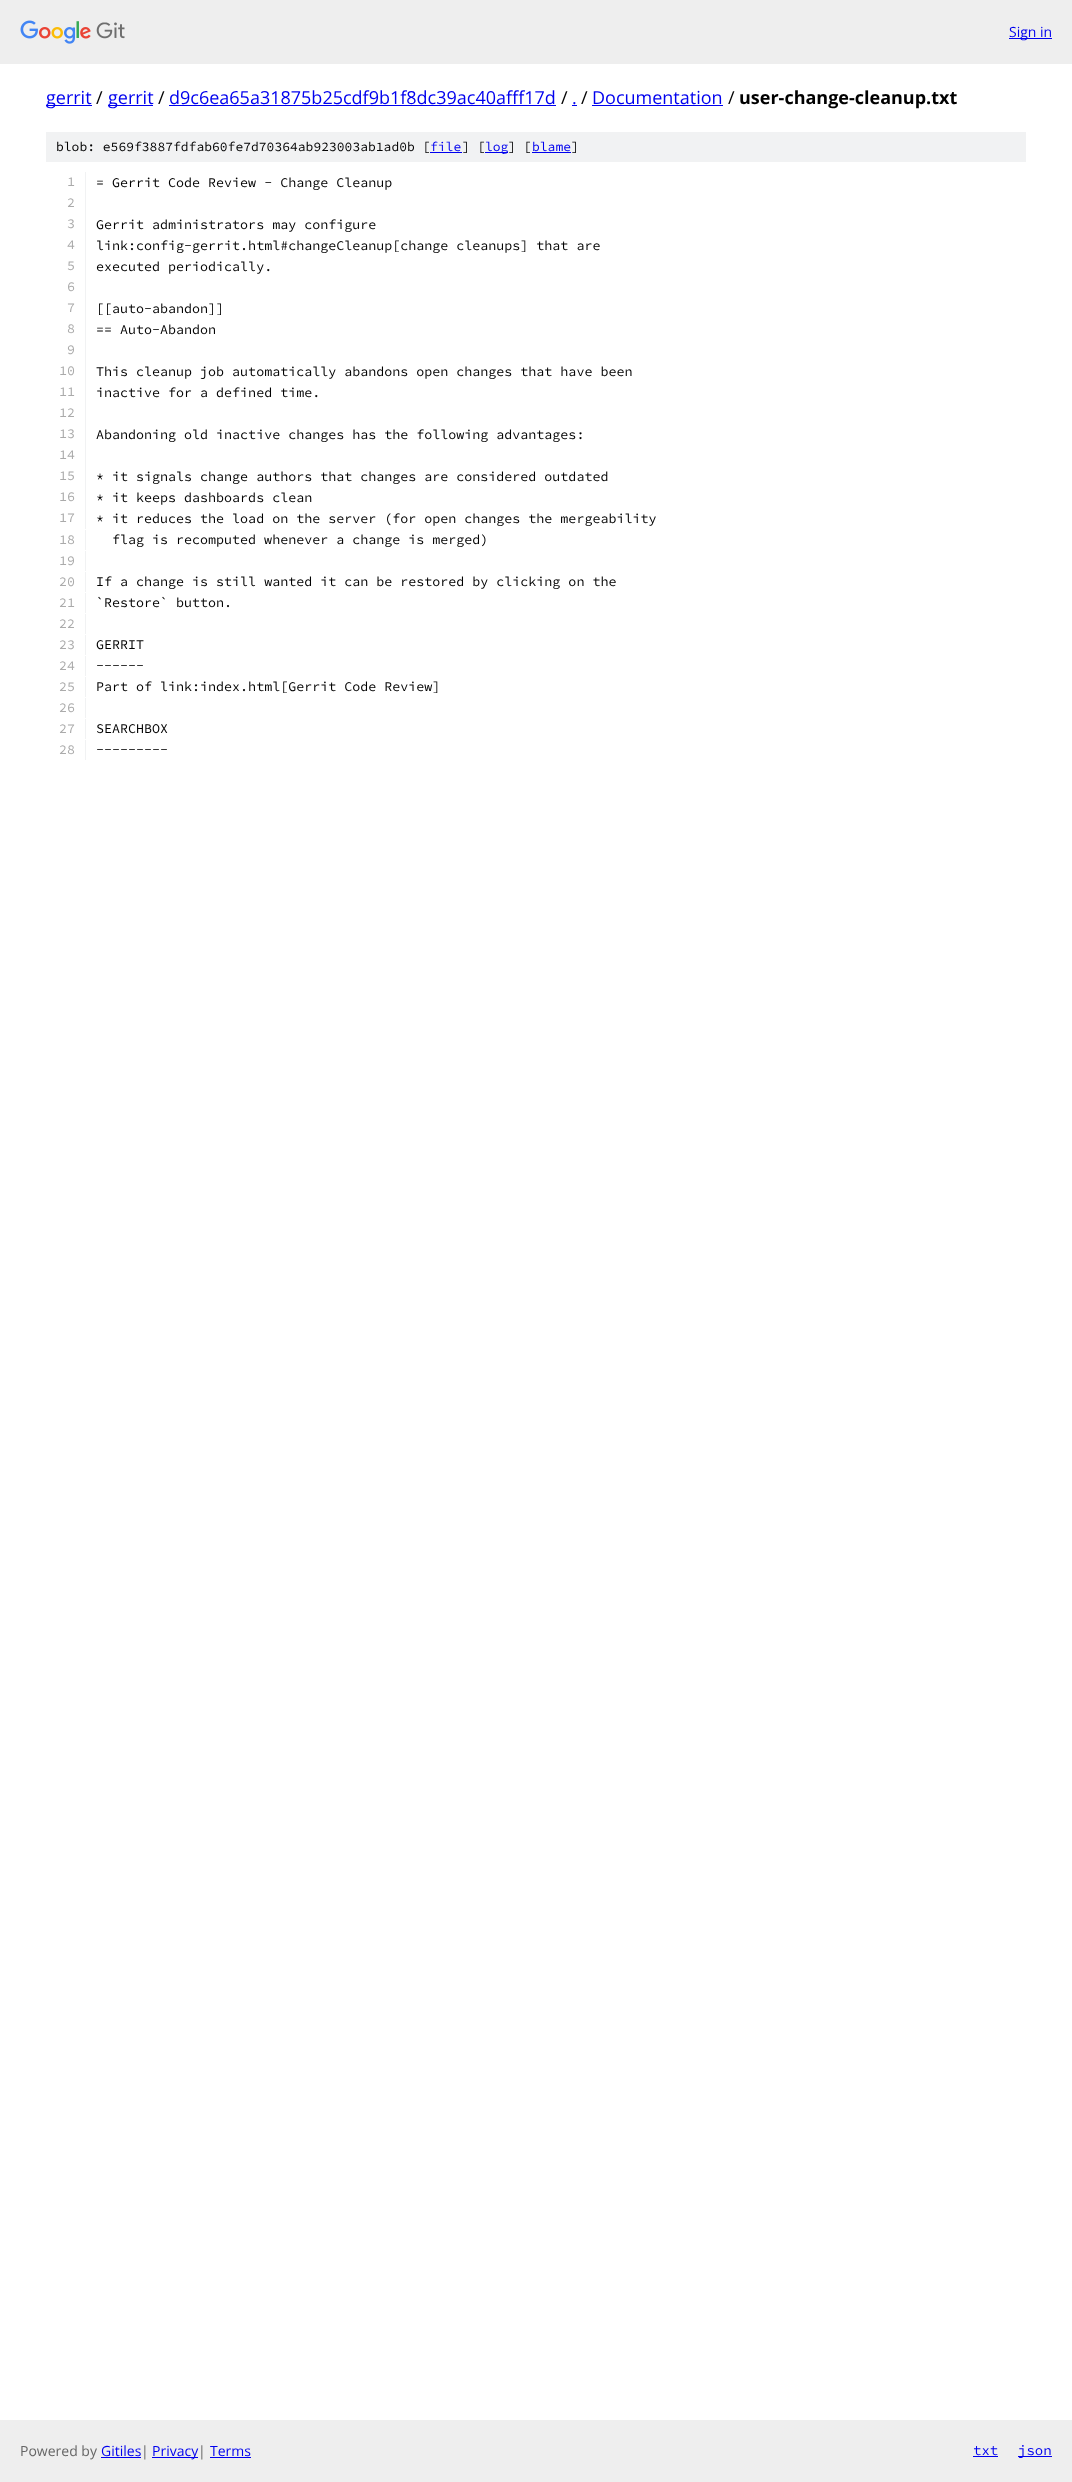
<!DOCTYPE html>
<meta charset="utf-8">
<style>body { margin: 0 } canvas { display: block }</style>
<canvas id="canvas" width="1072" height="2482"></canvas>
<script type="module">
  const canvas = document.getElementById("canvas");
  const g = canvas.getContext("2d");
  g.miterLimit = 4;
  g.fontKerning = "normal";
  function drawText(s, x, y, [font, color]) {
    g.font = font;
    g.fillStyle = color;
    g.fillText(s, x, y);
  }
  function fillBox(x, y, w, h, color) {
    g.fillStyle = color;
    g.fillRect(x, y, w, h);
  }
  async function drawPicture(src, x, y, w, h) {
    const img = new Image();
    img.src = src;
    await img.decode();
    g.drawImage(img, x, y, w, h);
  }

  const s1 = ["14px Open Sans", "#0000EE"];
  const s2 = ["18px Open Sans", "#0000EE"];
  const s3 = ["18px Open Sans", "#000000"];
  const s4 = ["bold 18px Open Sans", "#000000"];
  const s5 = ["200 13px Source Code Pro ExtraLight", "#000000"];
  const s6 = ["200 13px Source Code Pro ExtraLight", "#0000EE"];
  const s7 = ["200 13.35px Source Code Pro ExtraLight", "#AAAAAA"];
  const s8 = ["200 13.35px Source Code Pro ExtraLight", "#000000"];
  const s9 = ["14px Open Sans", "#666666"];
  const s10 = ["200 14px Source Code Pro ExtraLight", "#0000EE"];

  fillBox(0, 0, 1072, 2482, "#FFFFFF");
  fillBox(0, 0, 1072, 64, "#EEEEEE");
  await drawPicture("pic1.png", 20, 20, 105, 24);
  fillBox(1009, 38, 43, 1, "#0000EE");
  drawText("Sign in", 1009, 37, s1);
  fillBox(46, 105, 46, 1, "#0000EE");
  drawText("gerrit", 46, 104, s2);
  drawText("/", 96, 104, s3);
  fillBox(108, 105, 45, 1, "#0000EE");
  drawText("gerrit", 108, 104, s2);
  drawText("/", 158, 104, s3);
  drawText("d9c6ea65a31875b25cdf9b1f8dc39ac40afff17d", 169, 104, s2);
  fillBox(169, 105, 387, 1, "#0000EE");
  drawText("/", 561, 104, s3);
  drawText(".", 572, 104, s2);
  fillBox(572, 105, 5, 1, "#0000EE");
  drawText("/", 581, 104, s3);
  drawText("Documentation", 592, 104, s2);
  fillBox(592, 105, 131, 1, "#0000EE");
  drawText("/", 728, 104, s3);
  drawText("user-change-cleanup.txt", 739, 104, s4);
  fillBox(46, 132, 980, 30, "#F1F2F3");
  drawText("blob: e569f3887fdfab60fe7d70364ab923003ab1ad0b [", 56, 151, s5);
  drawText("file", 430, 151, s6);
  fillBox(430, 152, 32, 1, "#0000EE");
  drawText("] [", 462, 151, s5);
  fillBox(485, 152, 23, 1, "#0000EE");
  drawText("log", 485, 151, s6);
  drawText("] [", 508, 151, s5);
  drawText("blame", 532, 151, s6);
  fillBox(532, 152, 39, 1, "#0000EE");
  drawText("]", 571, 151, s5);
  fillBox(85, 172, 1, 357, "#F1F2F3");
  drawText("1", 67, 186, s7);
  drawText("= Gerrit Code Review - Change Cleanup", 96, 187, s8);
  drawText("2", 67, 207, s7);
  drawText("3", 67, 228, s7);
  drawText("Gerrit administrators may configure", 96, 229, s8);
  drawText("4", 67, 249, s7);
  drawText("link:config-gerrit.html#changeCleanup[change cleanups] that are", 96, 250, s8);
  drawText("5", 67, 270, s7);
  drawText("executed periodically.", 96, 271, s8);
  drawText("6", 67, 291, s7);
  drawText("7", 67, 312, s7);
  drawText("[[auto-abandon]]", 96, 313, s8);
  drawText("8", 67, 333, s7);
  drawText("== Auto-Abandon", 96, 334, s8);
  drawText("9", 67, 354, s7);
  drawText("10", 59, 375, s7);
  drawText("This cleanup job automatically abandons open changes that have been", 96, 376, s8);
  drawText("11", 59, 396, s7);
  drawText("inactive for a defined time.", 96, 397, s8);
  drawText("12", 59, 417, s7);
  drawText("13", 59, 438, s7);
  drawText("Abandoning old inactive changes has the following advantages:", 96, 439, s8);
  drawText("14", 59, 459, s7);
  drawText("15", 59, 480, s7);
  drawText("* it signals change authors that changes are considered outdated", 96, 481, s8);
  drawText("16", 59, 501, s7);
  drawText("* it keeps dashboards clean", 96, 502, s8);
  drawText("17", 59, 522, s7);
  drawText("* it reduces the load on the server (for open changes the mergeability", 96, 523, s8);
  fillBox(85, 530, 1, 20, "#F1F2F3");
  drawText("18", 59, 544, s7);
  drawText("flag is recomputed whenever a change is merged)", 112, 544, s8);
  fillBox(85, 551, 1, 20, "#F1F2F3");
  drawText("19", 59, 565, s7);
  fillBox(85, 572, 1, 20, "#F1F2F3");
  drawText("20", 59, 586, s7);
  drawText("If a change is still wanted it can be restored by clicking on the", 96, 586, s8);
  fillBox(85, 593, 1, 20, "#F1F2F3");
  drawText("21", 59, 607, s7);
  drawText("`Restore` button.", 96, 607, s8);
  fillBox(85, 614, 1, 20, "#F1F2F3");
  drawText("22", 59, 628, s7);
  fillBox(85, 635, 1, 20, "#F1F2F3");
  drawText("23", 59, 649, s7);
  drawText("GERRIT", 96, 649, s8);
  fillBox(85, 656, 1, 20, "#F1F2F3");
  drawText("24", 59, 670, s7);
  drawText("------", 96, 670, s8);
  fillBox(85, 677, 1, 20, "#F1F2F3");
  drawText("25", 59, 691, s7);
  drawText("Part of link:index.html[Gerrit Code Review]", 96, 691, s8);
  fillBox(85, 698, 1, 20, "#F1F2F3");
  drawText("26", 59, 712, s7);
  fillBox(85, 719, 1, 20, "#F1F2F3");
  drawText("27", 59, 733, s7);
  drawText("SEARCHBOX", 96, 733, s8);
  fillBox(85, 740, 1, 20, "#F1F2F3");
  drawText("28", 59, 754, s7);
  drawText("---------", 96, 754, s8);
  fillBox(0, 2420, 1072, 62, "#EEEEEE");
  drawText("Powered by", 20, 2456, s9);
  drawText("Gitiles", 101, 2456, s1);
  fillBox(101, 2457, 40, 1, "#0000EE");
  drawText("|", 141, 2456, s9);
  fillBox(152, 2457, 46, 1, "#0000EE");
  drawText("Privacy", 152, 2456, s1);
  drawText("|", 198, 2456, s9);
  drawText("Terms", 210, 2456, s1);
  fillBox(210, 2457, 41, 1, "#0000EE");
  drawText("txt", 973, 2455, s10);
  fillBox(973, 2456, 25, 1, "#0000EE");
  fillBox(1018, 2456, 34, 1, "#0000EE");
  drawText("json", 1018, 2455, s10);
</script>
